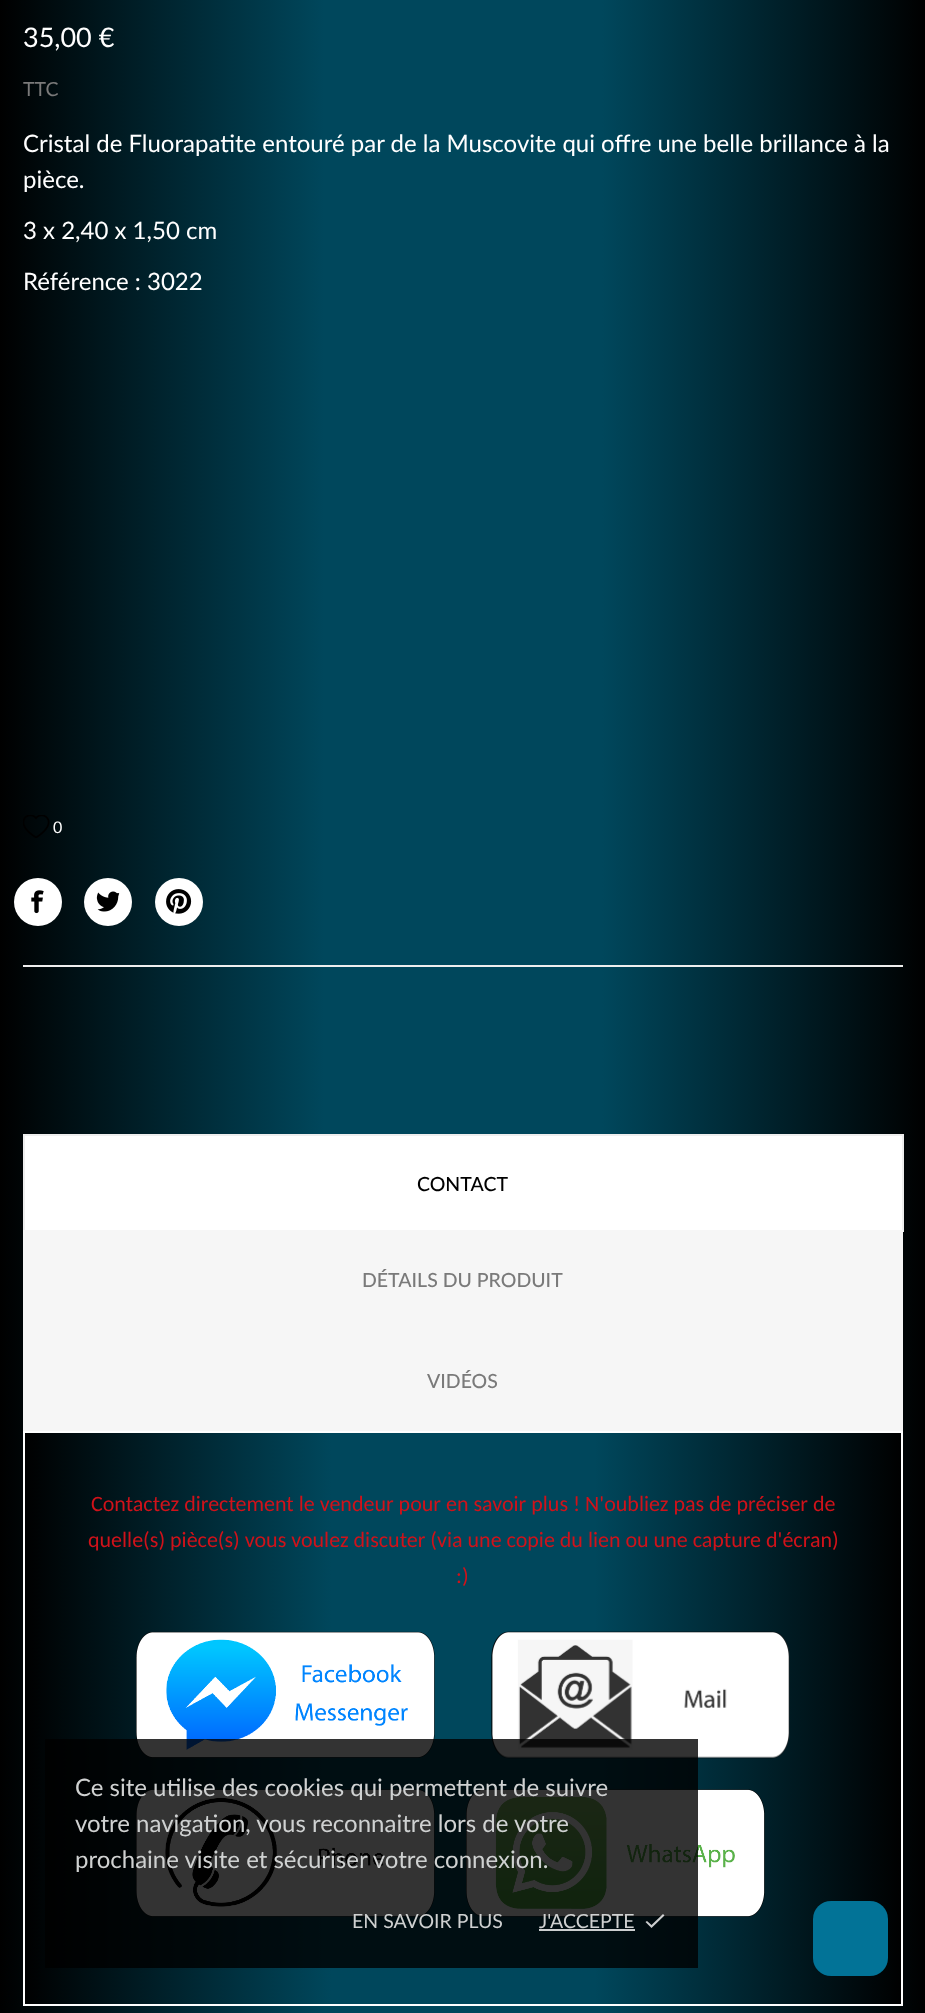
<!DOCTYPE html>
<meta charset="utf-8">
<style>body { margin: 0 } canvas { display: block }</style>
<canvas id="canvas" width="925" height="2013"></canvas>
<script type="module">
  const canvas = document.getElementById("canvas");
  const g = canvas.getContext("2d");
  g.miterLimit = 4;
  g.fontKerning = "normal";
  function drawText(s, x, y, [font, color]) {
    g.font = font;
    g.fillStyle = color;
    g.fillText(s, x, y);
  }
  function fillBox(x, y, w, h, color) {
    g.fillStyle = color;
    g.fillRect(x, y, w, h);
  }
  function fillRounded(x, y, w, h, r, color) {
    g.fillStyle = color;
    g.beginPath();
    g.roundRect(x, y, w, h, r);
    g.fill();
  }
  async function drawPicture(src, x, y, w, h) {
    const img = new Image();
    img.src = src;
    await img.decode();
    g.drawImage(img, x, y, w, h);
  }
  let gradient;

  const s1 = ["27px Lato", "#FFFFFF"];
  const s2 = ["19.5px Lato", "#7A7A7A"];
  const s3 = ["24px Lato", "#FFFFFF"];
  const s4 = ["16px Lato", "#FFFFFF"];
  const s5 = ["500 19.5px Lato", "#000000"];
  const s6 = ["500 19.5px Lato", "#7A7A7A"];
  const s7 = ["22px Carlito", "#D0121A"];
  const s8 = ["24px Lato", "#CFD1D1"];
  const s9 = ["19.5px Lato", "#CFD1D1"];

  fillBox(0, 0, 925, 2013, "#FFFFFF");
  gradient = g.createLinearGradient(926, -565, 0, -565);
  gradient.addColorStop(0, "#000000");
  gradient.addColorStop(0.35, "#00475C");
  gradient.addColorStop(0.65, "#00475C");
  gradient.addColorStop(1, "#000000");
  g.fillStyle = gradient;
  g.fillRect(0, 0, 925, 2013);
  drawText("35,00 €", 23, 47, s1);
  drawText("TTC", 23, 96, s2);
  drawText("Cristal de Fluorapatite entouré par de la Muscovite qui offre une belle brillance à la", 23, 152, s3);
  drawText("pièce.", 23, 188, s3);
  drawText("3 x 2,40 x 1,50 cm", 23, 239, s3);
  drawText("Référence : 3022", 23, 290, s3);
  fillBox(23, 965, 880, 2, "#EEEEEE");
  await drawPicture("pic1.png", 23, 815, 27, 23);
  drawText("0", 53, 833, s4);
  g.beginPath();
  g.arc(38, 902, 24, 0, Math.PI * 2);
  g.fill();
  await drawPicture("pic2.png", 31, 890, 13, 24);
  g.beginPath();
  g.arc(108, 902, 24, 0, Math.PI * 2);
  g.fill();
  await drawPicture("pic3.png", 96, 891, 24, 21);
  g.beginPath();
  g.arc(179, 902, 24, 0, Math.PI * 2);
  g.fill();
  await drawPicture("pic4.png", 166, 889, 26, 25);
  fillBox(23, 1331, 880, 100, "#F6F6F6");
  fillBox(25, 1136, 877, 94, "#FFFFFF");
  fillBox(23, 1134, 880, 2, "#EEEEEE");
  fillBox(902, 1134, 2, 98, "#EEEEEE");
  fillBox(23, 1134, 2, 98, "#EEEEEE");
  drawText("CONTACT", 417, 1191, s5);
  fillBox(23, 1230, 880, 101, "#F6F6F6");
  drawText("DÉTAILS DU PRODUIT", 362, 1287, s6);
  drawText("VIDÉOS", 427, 1388, s6);
  gradient = g.createLinearGradient(24, 1718, 902, 1718);
  gradient.addColorStop(0, "#000000");
  gradient.addColorStop(0.35, "#00475C");
  gradient.addColorStop(0.65, "#00475C");
  gradient.addColorStop(1, "#000000");
  g.fillStyle = gradient;
  g.fillRect(25, 1433, 876, 571);
  g.strokeStyle = "#FFFFFF";
  g.lineWidth = 2;
  g.strokeRect(24, 1432, 878, 573);
  drawText("Contactez directement le vendeur pour en savoir plus ! N'oubliez pas de préciser de", 91, 1511, s7);
  drawText("quelle(s) pièce(s) vous voulez discuter (via une copie du lien ou une capture d'écran)", 88, 1547, s7);
  drawText(":)", 456, 1583, s7);
  await drawPicture("pic5.png", 136, 1631, 299, 127);
  await drawPicture("pic6.png", 491, 1631, 299, 128);
  await drawPicture("pic7.png", 136, 1789, 299, 128);
  await drawPicture("pic8.png", 466, 1789, 299, 128);
  fillRounded(813, 1901, 75, 75, 18, "#027397");
  fillBox(45, 1739, 653, 229, "rgba(0, 0, 0, 0.8)");
  drawText("Ce site utilise des cookies qui permettent de suivre", 75, 1796, s8);
  drawText("votre navigation, vous reconnaitre lors de votre", 75, 1832, s8);
  drawText("prochaine visite et sécuriser votre connexion.", 75, 1868, s8);
  drawText("EN SAVOIR PLUS", 352, 1928, s9);
  drawText("J'ACCEPTE", 539, 1928, s9);
  fillBox(539, 1929, 96, 2, "#CCCFD0");
  g.fillStyle = "rgba(255, 255, 255, 0.8)";
  g.beginPath();
  g.moveTo(651.5, 1925);
  g.lineTo(663, 1914);
  g.lineTo(664.5, 1915.5);
  g.lineTo(651.5, 1928);
  g.lineTo(645.5, 1922);
  g.lineTo(647, 1921);
  g.closePath();
  g.fill();
</script>
